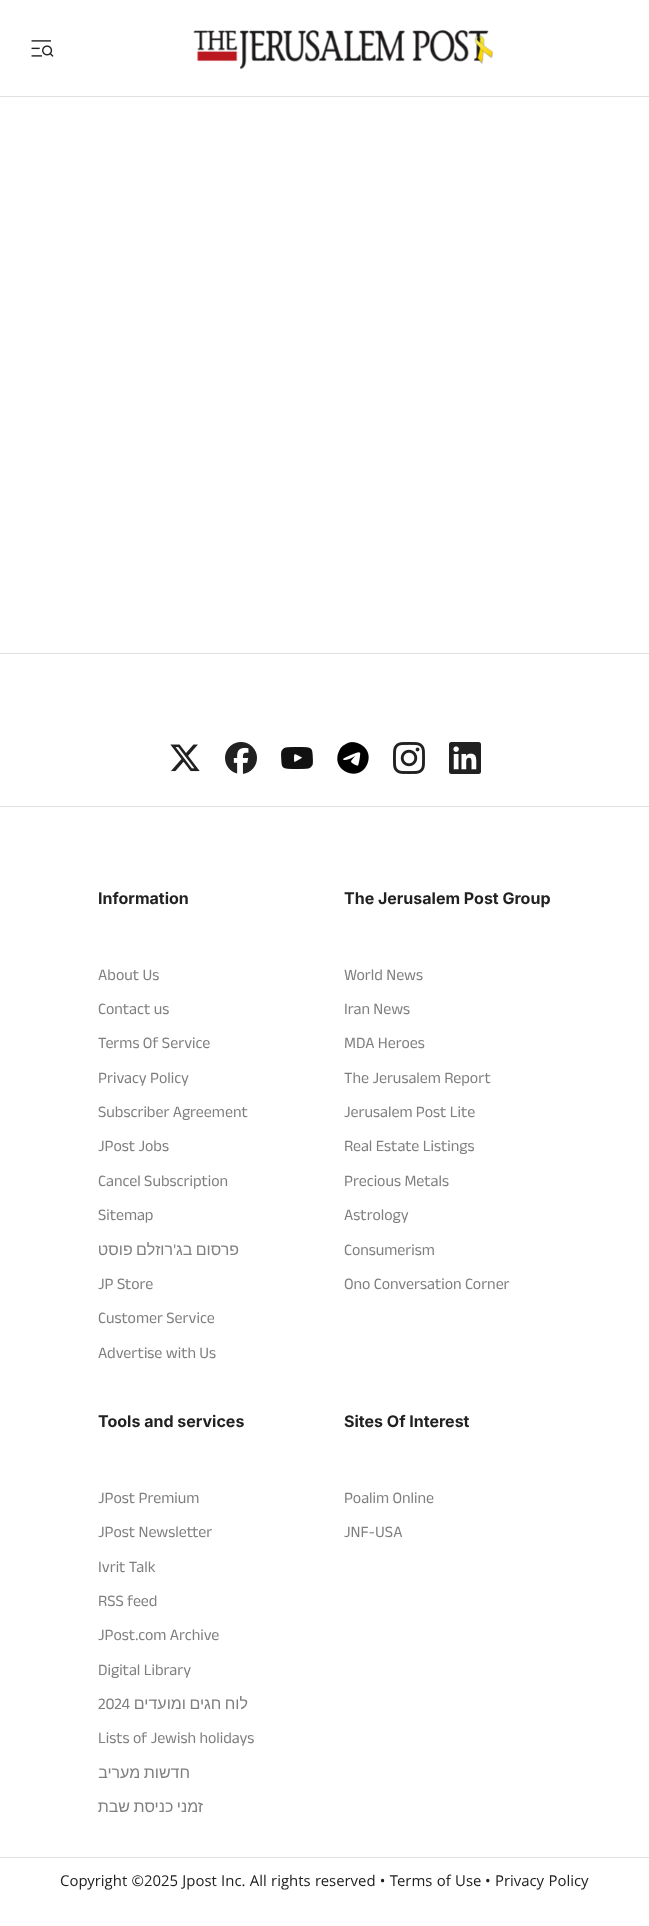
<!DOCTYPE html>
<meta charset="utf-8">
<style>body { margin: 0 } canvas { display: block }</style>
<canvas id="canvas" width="649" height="1926"></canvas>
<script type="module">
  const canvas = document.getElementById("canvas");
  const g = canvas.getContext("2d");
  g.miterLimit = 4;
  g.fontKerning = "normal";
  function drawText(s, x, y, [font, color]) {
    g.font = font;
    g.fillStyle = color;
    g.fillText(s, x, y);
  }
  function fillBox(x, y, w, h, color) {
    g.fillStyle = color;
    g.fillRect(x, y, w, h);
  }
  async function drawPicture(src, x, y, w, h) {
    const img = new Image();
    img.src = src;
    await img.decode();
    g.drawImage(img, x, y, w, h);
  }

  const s1 = ["bold 16px Inter", "#212121"];
  const s2 = ["16px Anek Latin", "#7F7F7F"];
  const s3 = ["16px Liberation Sans", "#7F7F7F"];
  const s4 = ["16px Khula", "#212121"];

  fillBox(0, 0, 649, 1926, "#FFFFFF");
  fillBox(0, 96, 649, 1, "#E1E1E1");
  await drawPicture("pic1.png", 31, 40, 23, 17);
  await drawPicture("pic2.png", 193, 30, 300, 39);
  fillBox(0, 653, 649, 1, "#E1E1E1");
  fillBox(0, 806, 649, 1, "#E1E1E1");
  await drawPicture("pic3.png", 170, 744, 30, 28);
  await drawPicture("pic4.png", 225, 742, 32, 32);
  await drawPicture("pic5.png", 281, 747, 32, 22);
  await drawPicture("pic6.png", 337, 742, 32, 32);
  await drawPicture("pic7.png", 393, 742, 32, 32);
  await drawPicture("pic8.png", 449, 742, 32, 32);
  fillBox(0, 1857, 649, 1, "#E1E1E1");
  drawText("Information", 98, 904, s1);
  drawText("About Us", 98, 980, s2);
  drawText("Contact us", 98, 1014, s2);
  drawText("Terms Of Service", 98, 1048, s2);
  drawText("Privacy Policy", 98, 1083, s2);
  drawText("Subscriber Agreement", 98, 1117, s2);
  drawText("JPost Jobs", 98, 1151, s2);
  drawText("Cancel Subscription", 98, 1186, s2);
  drawText("Sitemap", 98, 1220, s2);
  g.wordSpacing = "-1px";
  g.direction = "rtl";
  drawText("רוזלם פוסט", 173, 1255, s3);
  g.wordSpacing = "0px";
  drawText("'", 176, 1255, s2);
  g.wordSpacing = "-1px";
  drawText("פרסום בג", 239, 1255, s3);
  g.wordSpacing = "0px";
  g.direction = "ltr";
  drawText("JP Store", 98, 1289, s2);
  drawText("Customer Service", 98, 1323, s2);
  drawText("Advertise with Us", 98, 1358, s2);
  drawText("The Jerusalem Post Group", 344, 904, s1);
  drawText("World News", 344, 980, s2);
  drawText("Iran News", 344, 1014, s2);
  drawText("MDA Heroes", 344, 1048, s2);
  drawText("The Jerusalem Report", 344, 1083, s2);
  drawText("Jerusalem Post Lite", 344, 1117, s2);
  drawText("Real Estate Listings", 344, 1151, s2);
  drawText("Precious Metals", 344, 1186, s2);
  drawText("Astrology", 344, 1220, s2);
  drawText("Consumerism", 344, 1255, s2);
  drawText("Ono Conversation Corner", 344, 1289, s2);
  drawText("Tools and services", 98, 1427, s1);
  drawText("JPost Premium", 98, 1503, s2);
  drawText("JPost Newsletter", 98, 1537, s2);
  drawText("Ivrit Talk", 98, 1572, s2);
  drawText("RSS feed", 98, 1606, s2);
  drawText("JPost.com Archive", 98, 1640, s2);
  drawText("Digital Library", 98, 1675, s2);
  drawText("2024", 98, 1709, s2);
  g.wordSpacing = "-1px";
  g.direction = "rtl";
  drawText("לוח חגים ומועדים", 248, 1709, s3);
  g.wordSpacing = "0px";
  g.direction = "ltr";
  drawText("Lists of Jewish holidays", 98, 1743, s2);
  g.wordSpacing = "-1px";
  g.direction = "rtl";
  drawText("חדשות מעריב", 190, 1778, s3);
  drawText("זמני כניסת שבת", 203, 1812, s3);
  g.wordSpacing = "0px";
  g.direction = "ltr";
  drawText("Sites Of Interest", 344, 1427, s1);
  drawText("Poalim Online", 344, 1503, s2);
  drawText("JNF-USA", 344, 1537, s2);
  drawText("Copyright ©2025 Jpost Inc. All rights reserved • Terms of Use", 60, 1886, s4);
  drawText("• Privacy Policy", 485, 1886, s4);
</script>
